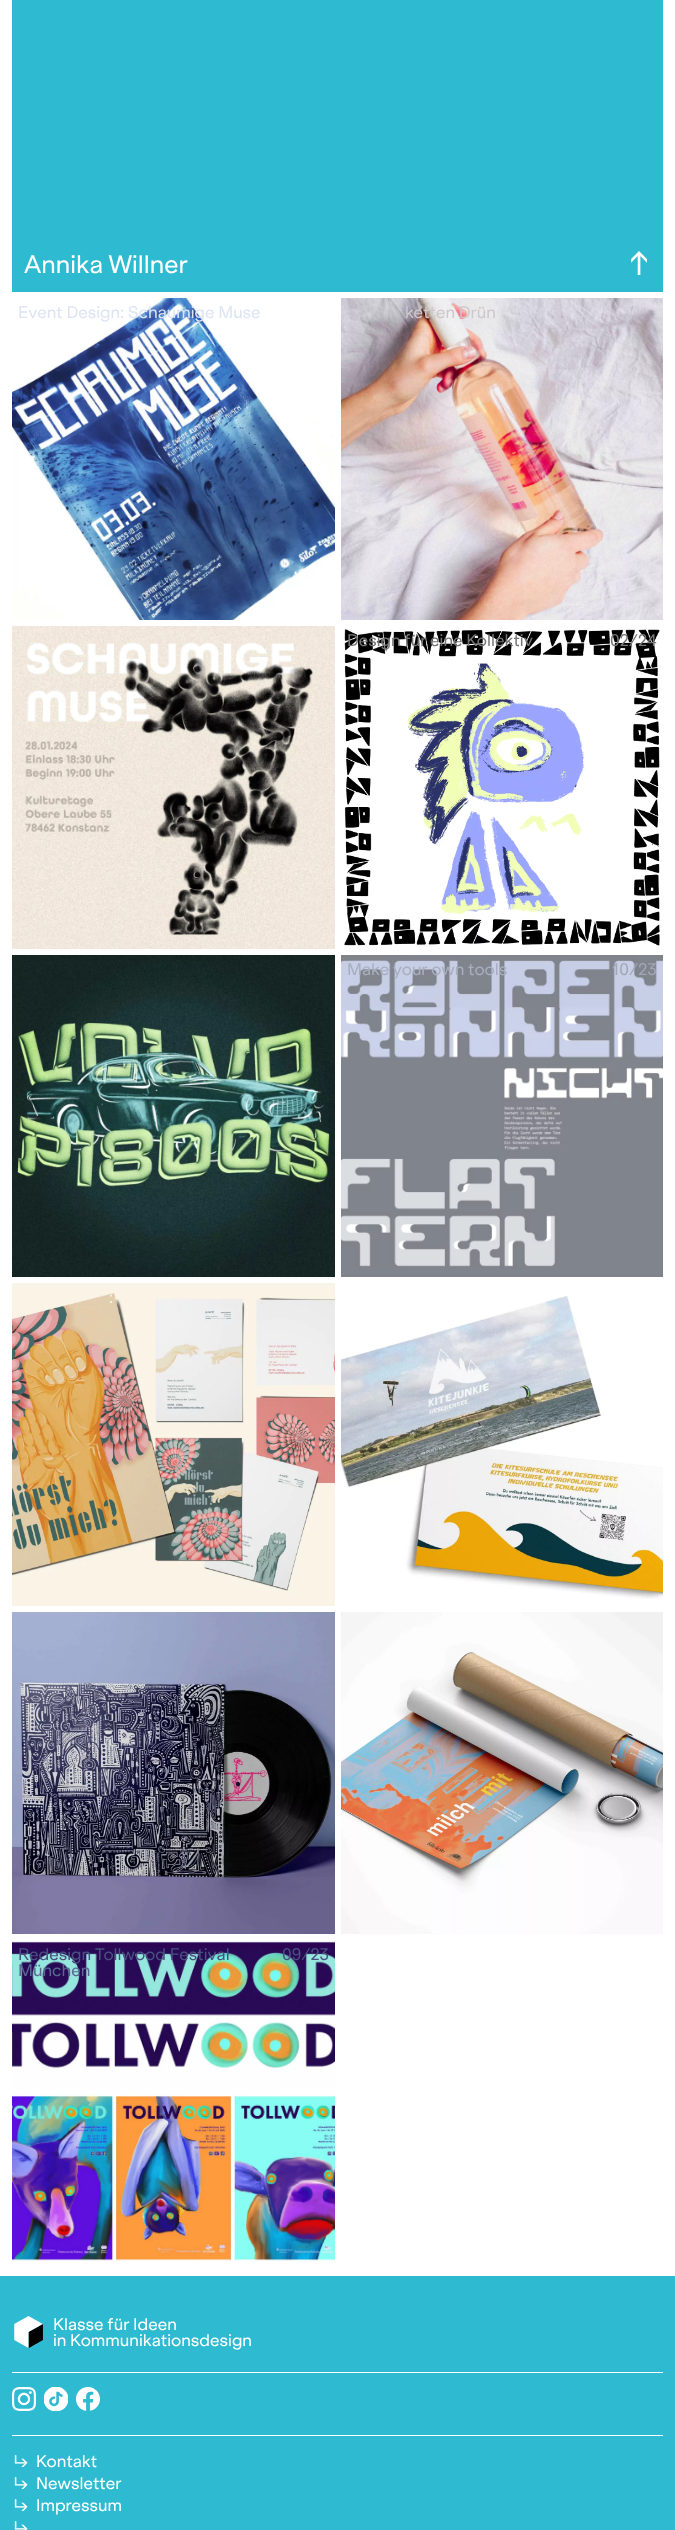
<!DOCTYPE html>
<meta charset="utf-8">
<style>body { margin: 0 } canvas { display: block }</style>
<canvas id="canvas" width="675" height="2530"></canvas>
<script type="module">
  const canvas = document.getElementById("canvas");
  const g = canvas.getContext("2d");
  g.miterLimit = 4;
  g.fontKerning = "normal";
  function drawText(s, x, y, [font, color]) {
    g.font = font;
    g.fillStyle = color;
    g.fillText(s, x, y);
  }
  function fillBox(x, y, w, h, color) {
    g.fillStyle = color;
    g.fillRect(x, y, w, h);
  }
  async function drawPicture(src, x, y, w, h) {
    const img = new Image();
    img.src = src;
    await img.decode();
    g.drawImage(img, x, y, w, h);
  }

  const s1 = ["24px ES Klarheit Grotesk", "#FFFFFF"];
  const s2 = ["16px ES Klarheit Grotesk", "#DDE5F3"];
  const s3 = ["16px ES Klarheit Grotesk", "#CEC7CC"];
  const s4 = ["16px ES Klarheit Grotesk", "#767676"];
  const s5 = ["16px ES Klarheit Grotesk", "#A8AEBF"];
  const s6 = ["16px ES Klarheit Grotesk", "#A1A6B6"];
  const s7 = ["16px ES Klarheit Grotesk", "#F6EFE2"];
  const s8 = ["16px ES Klarheit Grotesk", "#4A5181"];
  const s9 = ["16px ES Klarheit Grotesk", "#576990"];
  const s10 = ["16px ES Klarheit Grotesk", "#FFFFFF"];

  fillBox(0, 0, 675, 2530, "#FFFFFF");
  fillBox(12, 0, 651, 292, "#2EBBD1");
  drawText("Annika Willner", 24, 273, s1);
  await drawPicture("pic1.png", 631, 251, 16, 24);
  await drawPicture("pic2.png", 12, 298, 323, 322);
  drawText("Event Design: Schaumige Muse", 18, 318, s2);
  await drawPicture("pic3.png", 341, 298, 322, 322);
  drawText("ketten Drün", 405, 318, s3);
  await drawPicture("pic4.png", 12, 626, 323, 323);
  await drawPicture("pic5.png", 344, 629, 316, 317);
  drawText("Design für eine Kollektiv", 347, 646, s4);
  drawText("02/24", 610, 646, s4);
  await drawPicture("pic6.png", 12, 955, 323, 322);
  await drawPicture("pic7.png", 341, 955, 322, 322);
  drawText("Make your own tools", 347, 975, s5);
  drawText("10/23", 612, 975, s6);
  await drawPicture("pic8.png", 12, 1283, 323, 323);
  drawText(":", 109, 1303, s7);
  await drawPicture("pic9.png", 341, 1295, 322, 304);
  await drawPicture("pic10.png", 12, 1612, 323, 322);
  await drawPicture("pic11.png", 341, 1612, 322, 322);
  await drawPicture("pic12.png", 12, 1941, 323, 320);
  drawText("Redesign Tollwood Festival", 18, 1960, s8);
  drawText("München", 18, 1976, s9);
  drawText("09/23", 282, 1960, s8);
  fillBox(0, 2276, 675, 254, "#2EBBD1");
  fillBox(12, 2372, 651, 1, "#FFFFFF");
  await drawPicture("pic13.png", 14, 2316, 29, 32);
  drawText("Klasse für Ideen", 53, 2330, s10);
  drawText("in Kommunikationsdesign", 53, 2346, s10);
  fillBox(12, 2435, 651, 1, "#FFFFFF");
  await drawPicture("pic14.png", 12, 2387, 24, 24);
  await drawPicture("pic15.png", 44, 2387, 24, 24);
  await drawPicture("pic16.png", 76, 2387, 24, 24);
  drawText("↳", 14, 2467, s10);
  drawText("Kontakt", 36, 2467, s10);
  drawText("↳", 14, 2489, s10);
  drawText("Newsletter", 36, 2489, s10);
  drawText("↳", 14, 2511, s10);
  drawText("Impressum", 36, 2511, s10);
  drawText("↳", 14, 2533, s10);
</script>
